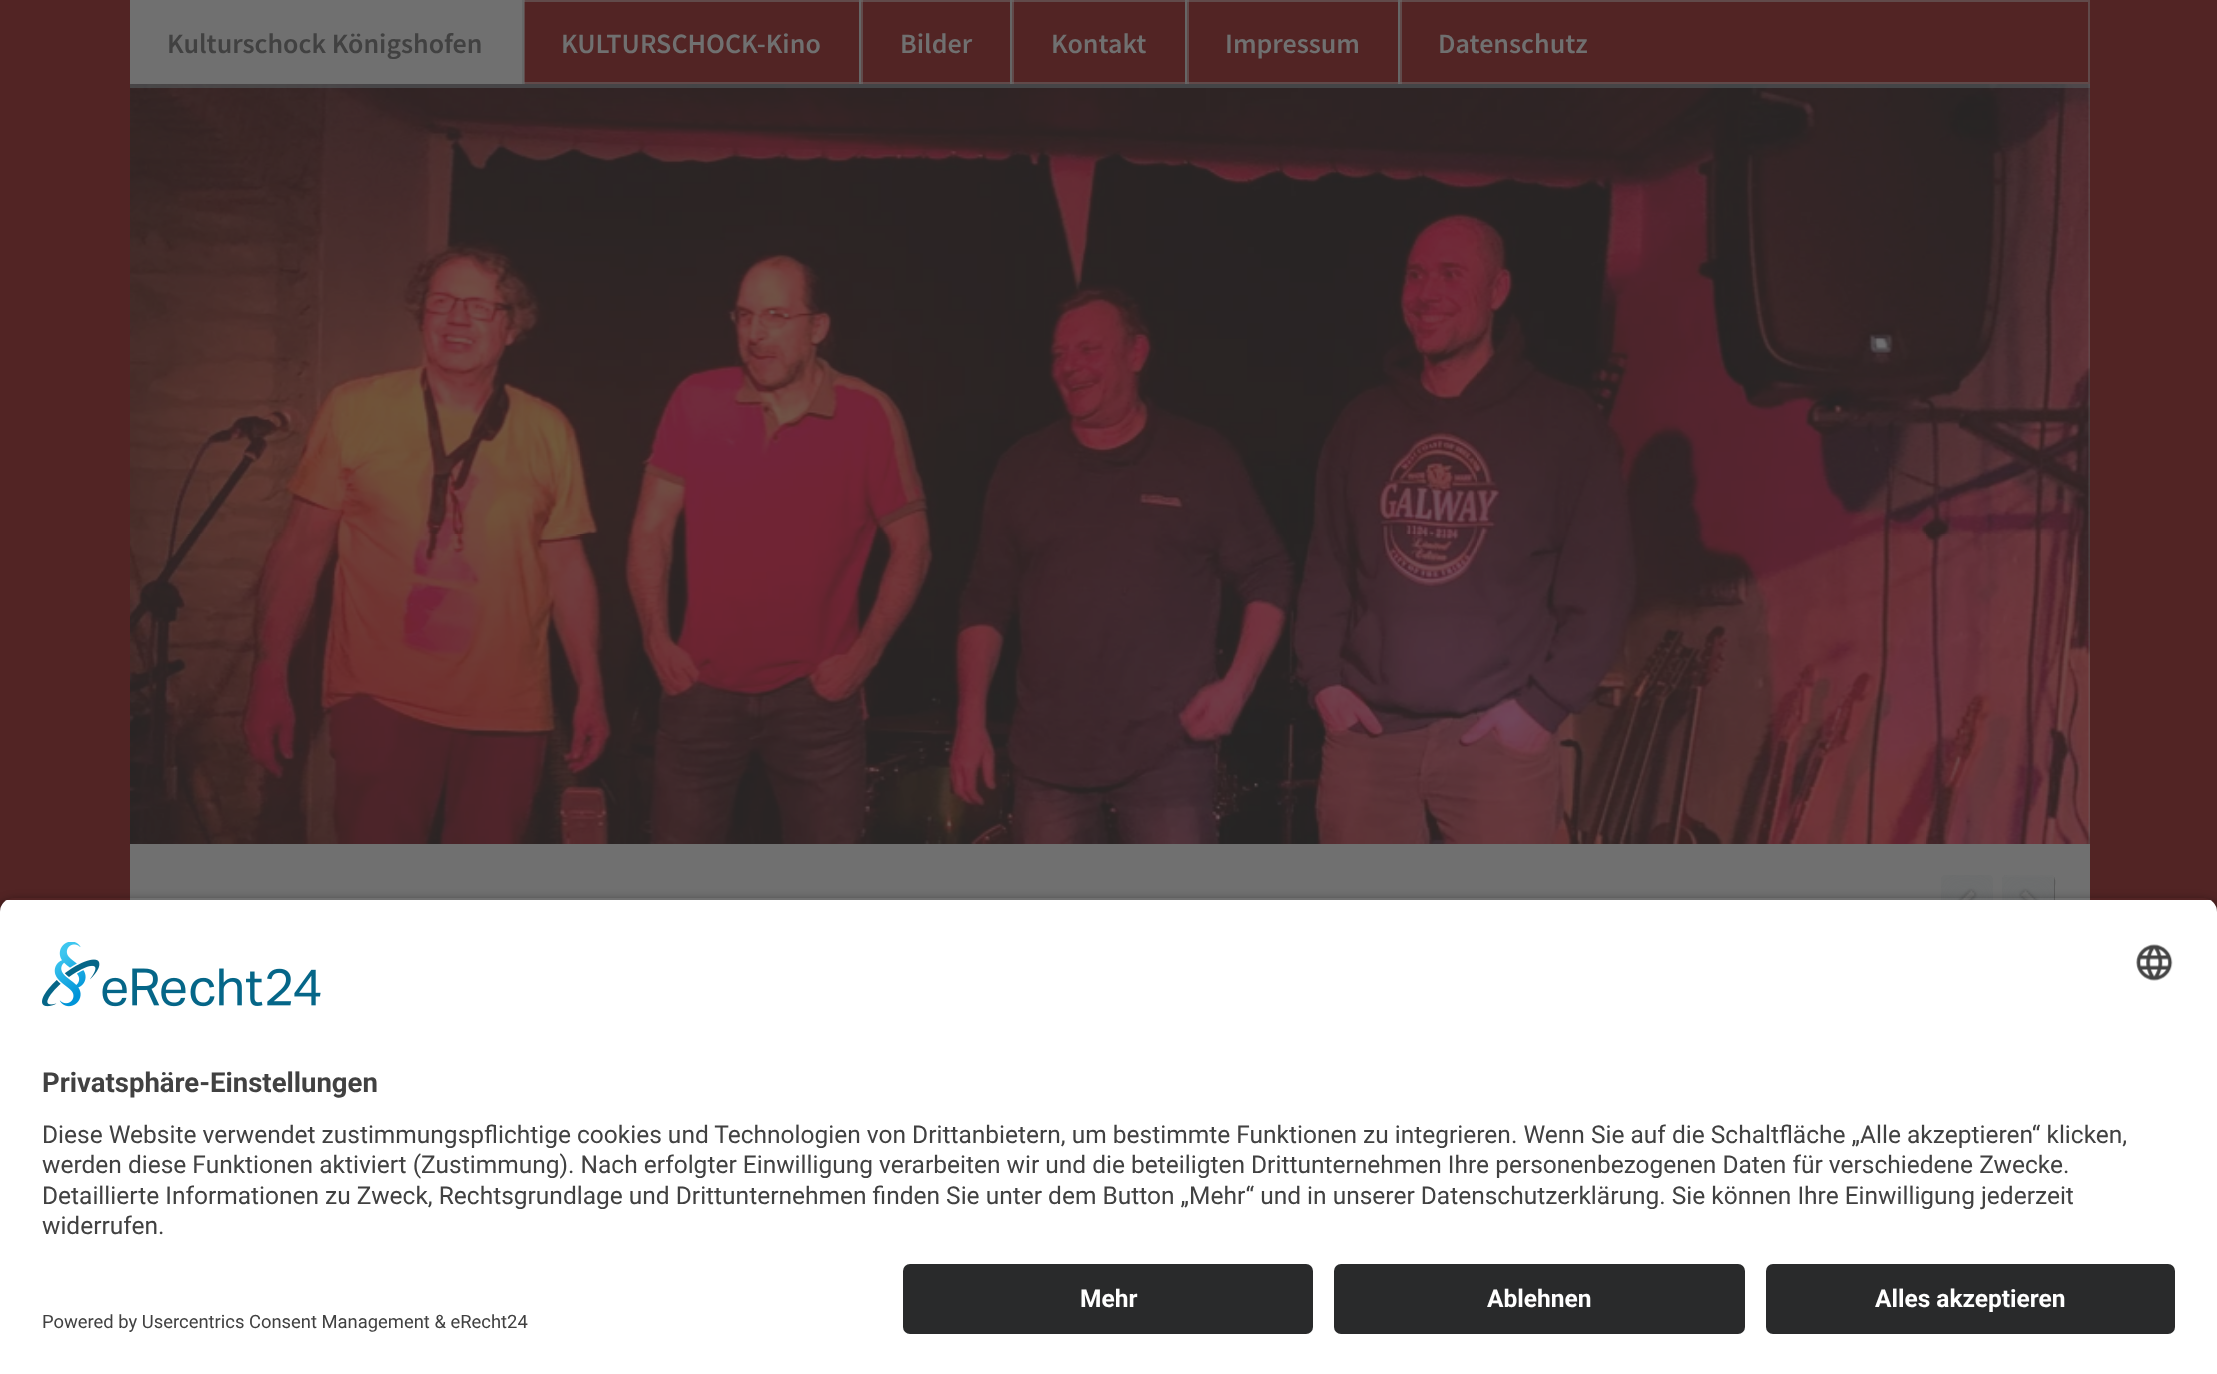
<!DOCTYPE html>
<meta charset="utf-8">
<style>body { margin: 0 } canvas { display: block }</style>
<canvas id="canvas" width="2217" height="1374"></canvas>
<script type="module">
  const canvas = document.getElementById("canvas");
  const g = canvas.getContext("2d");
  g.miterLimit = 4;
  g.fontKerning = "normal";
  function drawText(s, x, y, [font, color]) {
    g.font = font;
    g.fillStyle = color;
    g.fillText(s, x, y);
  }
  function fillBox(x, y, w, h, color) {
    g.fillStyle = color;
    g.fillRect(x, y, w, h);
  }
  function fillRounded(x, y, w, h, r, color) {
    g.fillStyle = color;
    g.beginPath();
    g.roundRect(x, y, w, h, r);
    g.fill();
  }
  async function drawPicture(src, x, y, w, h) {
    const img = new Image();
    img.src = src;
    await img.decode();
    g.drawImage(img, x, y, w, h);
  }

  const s1 = ["600 28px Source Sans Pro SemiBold", "#414141"];
  const s2 = ["600 28px Source Sans Pro SemiBold", "#707070"];
  const s3 = ["bold 27.5px Roboto", "#414141"];
  const s4 = ["24.5px Roboto", "#414141"];
  const s5 = ["bold 24.5px Roboto", "#FFFFFF"];
  const s6 = ["18.4px Roboto", "#414141"];

  fillBox(0, 0, 2217, 1374, "#522424");
  g.strokeStyle = "#614A4A";
  g.lineWidth = 2;
  g.strokeRect(131, 1, 1958, 82);
  fillBox(130, 0, 392, 84, "#707070");
  drawText("Kulturschock Königshofen", 167, 53, s1);
  fillBox(524, 0, 1, 84, "rgba(112, 112, 112, 0.5)");
  fillBox(522, 0, 2, 84, "#666666");
  drawText("KULTURSCHOCK-Kino", 561, 53, s2);
  fillBox(861, 0, 2, 84, "rgba(112, 112, 112, 0.5)");
  fillBox(859, 0, 2, 84, "#666666");
  drawText("Bilder", 900, 53, s2);
  fillBox(1012, 0, 2, 84, "rgba(112, 112, 112, 0.5)");
  fillBox(1010, 0, 2, 84, "#666666");
  drawText("Kontakt", 1051, 53, s2);
  fillBox(1187, 0, 2, 84, "rgba(112, 112, 112, 0.5)");
  fillBox(1185, 0, 2, 84, "#666666");
  drawText("Impressum", 1225, 53, s2);
  fillBox(1400, 0, 2, 84, "rgba(112, 112, 112, 0.5)");
  fillBox(1398, 0, 2, 84, "#666666");
  drawText("Datenschutz", 1438, 53, s2);
  fillBox(130, 84, 1960, 816, "#707070");
  await drawPicture("pic1.png", 130, 84, 1960, 760);
  fillBox(130, 84, 1960, 4, "rgba(60, 85, 93, 0.3)");
  fillBox(130, 84, 1960, 4, "rgba(112, 112, 112, 0.3)");
  fillRounded(1941, 875, 52, 53, 5, "rgba(112, 112, 112, 0.2)");
  await drawPicture("pic2.png", 1941, 875, 52, 25);
  fillRounded(2002, 875, 53, 53, 5, "rgba(112, 112, 112, 0.2)");
  await drawPicture("pic3.png", 2002, 875, 52, 25);
  g.fillStyle = "rgba(36, 36, 36, 0.3)";
  g.beginPath();
  g.moveTo(2002, 920);
  g.bezierCurveTo(2002, 929, 2006, 928, 2014, 928);
  g.lineTo(2028, 928);
  g.bezierCurveTo(2060, 928, 2055, 933, 2055, 902);
  g.lineTo(2055, 887);
  g.bezierCurveTo(2055, 885, 2056, 879, 2054, 877);
  g.lineTo(2054, 913);
  g.bezierCurveTo(2054, 916, 2055, 925, 2050, 926);
  g.lineTo(2007, 926);
  g.bezierCurveTo(2004, 926, 2002, 923, 2002, 920);
  g.closePath();
  g.fill();
  g.fillStyle = "rgba(112, 112, 112, 0.5)";
  g.beginPath();
  g.moveTo(2007, 877);
  g.lineTo(2049, 877);
  g.bezierCurveTo(2052, 877, 2054, 878, 2055, 880);
  g.bezierCurveTo(2055, 877, 2053, 875, 2050, 875);
  g.lineTo(2007, 875);
  g.bezierCurveTo(2005, 875, 2003, 877, 2002, 879);
  g.bezierCurveTo(2003, 878, 2005, 877, 2007, 877);
  g.closePath();
  g.fill();
  g.save();
  g.beginPath();
  g.moveTo(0, 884);
  g.lineTo(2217, 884);
  g.lineTo(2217, 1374);
  g.lineTo(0, 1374);
  g.closePath();
  g.moveTo(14, 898);
  g.lineTo(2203, 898);
  g.bezierCurveTo(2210.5, 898, 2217, 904.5, 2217, 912);
  g.lineTo(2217, 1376);
  g.lineTo(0, 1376);
  g.lineTo(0, 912);
  g.bezierCurveTo(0, 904.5, 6.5, 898, 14, 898);
  g.closePath();
  g.clip("evenodd");
  g.fillStyle = "rgba(0, 0, 0, 0.8)";
  g.filter = "blur(6px)";
  g.beginPath();
  g.roundRect(0, 903, 2217, 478, 14);
  g.fill();
  g.filter = "none";
  g.restore();
  g.save();
  g.beginPath();
  g.roundRect(0, 898, 2217, 352, [14, 14, 0, 0]);
  g.clip();
  fillBox(0, 900, 2217, 350, "#FFFFFF");
  g.restore();
  await drawPicture("pic4.png", 42, 942, 279, 65);
  await drawPicture("pic5.png", 2136, 944, 37, 37);
  drawText("Privatsphäre-Einstellungen", 42, 1092, s3);
  drawText("Diese Website verwendet zustimmungspflichtige cookies und Technologien von Drittanbietern, um bestimmte Funktionen zu integrieren. Wenn Sie auf die Schaltfläche „Alle akzeptieren“ klicken,", 42, 1143, s4);
  drawText("werden diese Funktionen aktiviert (Zustimmung). Nach erfolgter Einwilligung verarbeiten wir und die beteiligten Drittunternehmen Ihre personenbezogenen Daten für verschiedene Zwecke.", 42, 1173, s4);
  drawText("Detaillierte Informationen zu Zweck, Rechtsgrundlage und Drittunternehmen finden Sie unter dem Button „Mehr“ und in unserer Datenschutzerklärung. Sie können Ihre Einwilligung jederzeit", 42, 1204, s4);
  drawText("widerrufen.", 42, 1234, s4);
  fillBox(0, 1250, 2217, 124, "#FFFFFF");
  fillRounded(903, 1264, 410, 70, 7, "#292A2B");
  drawText("Mehr", 1080, 1307, s5);
  fillRounded(1334, 1264, 411, 70, 7, "#292A2B");
  drawText("Ablehnen", 1487, 1307, s5);
  fillRounded(1766, 1264, 409, 70, 7, "#292A2B");
  drawText("Alles akzeptieren", 1875, 1307, s5);
  drawText("Powered by Usercentrics Consent Management & eRecht24", 42, 1328, s6);
</script>
